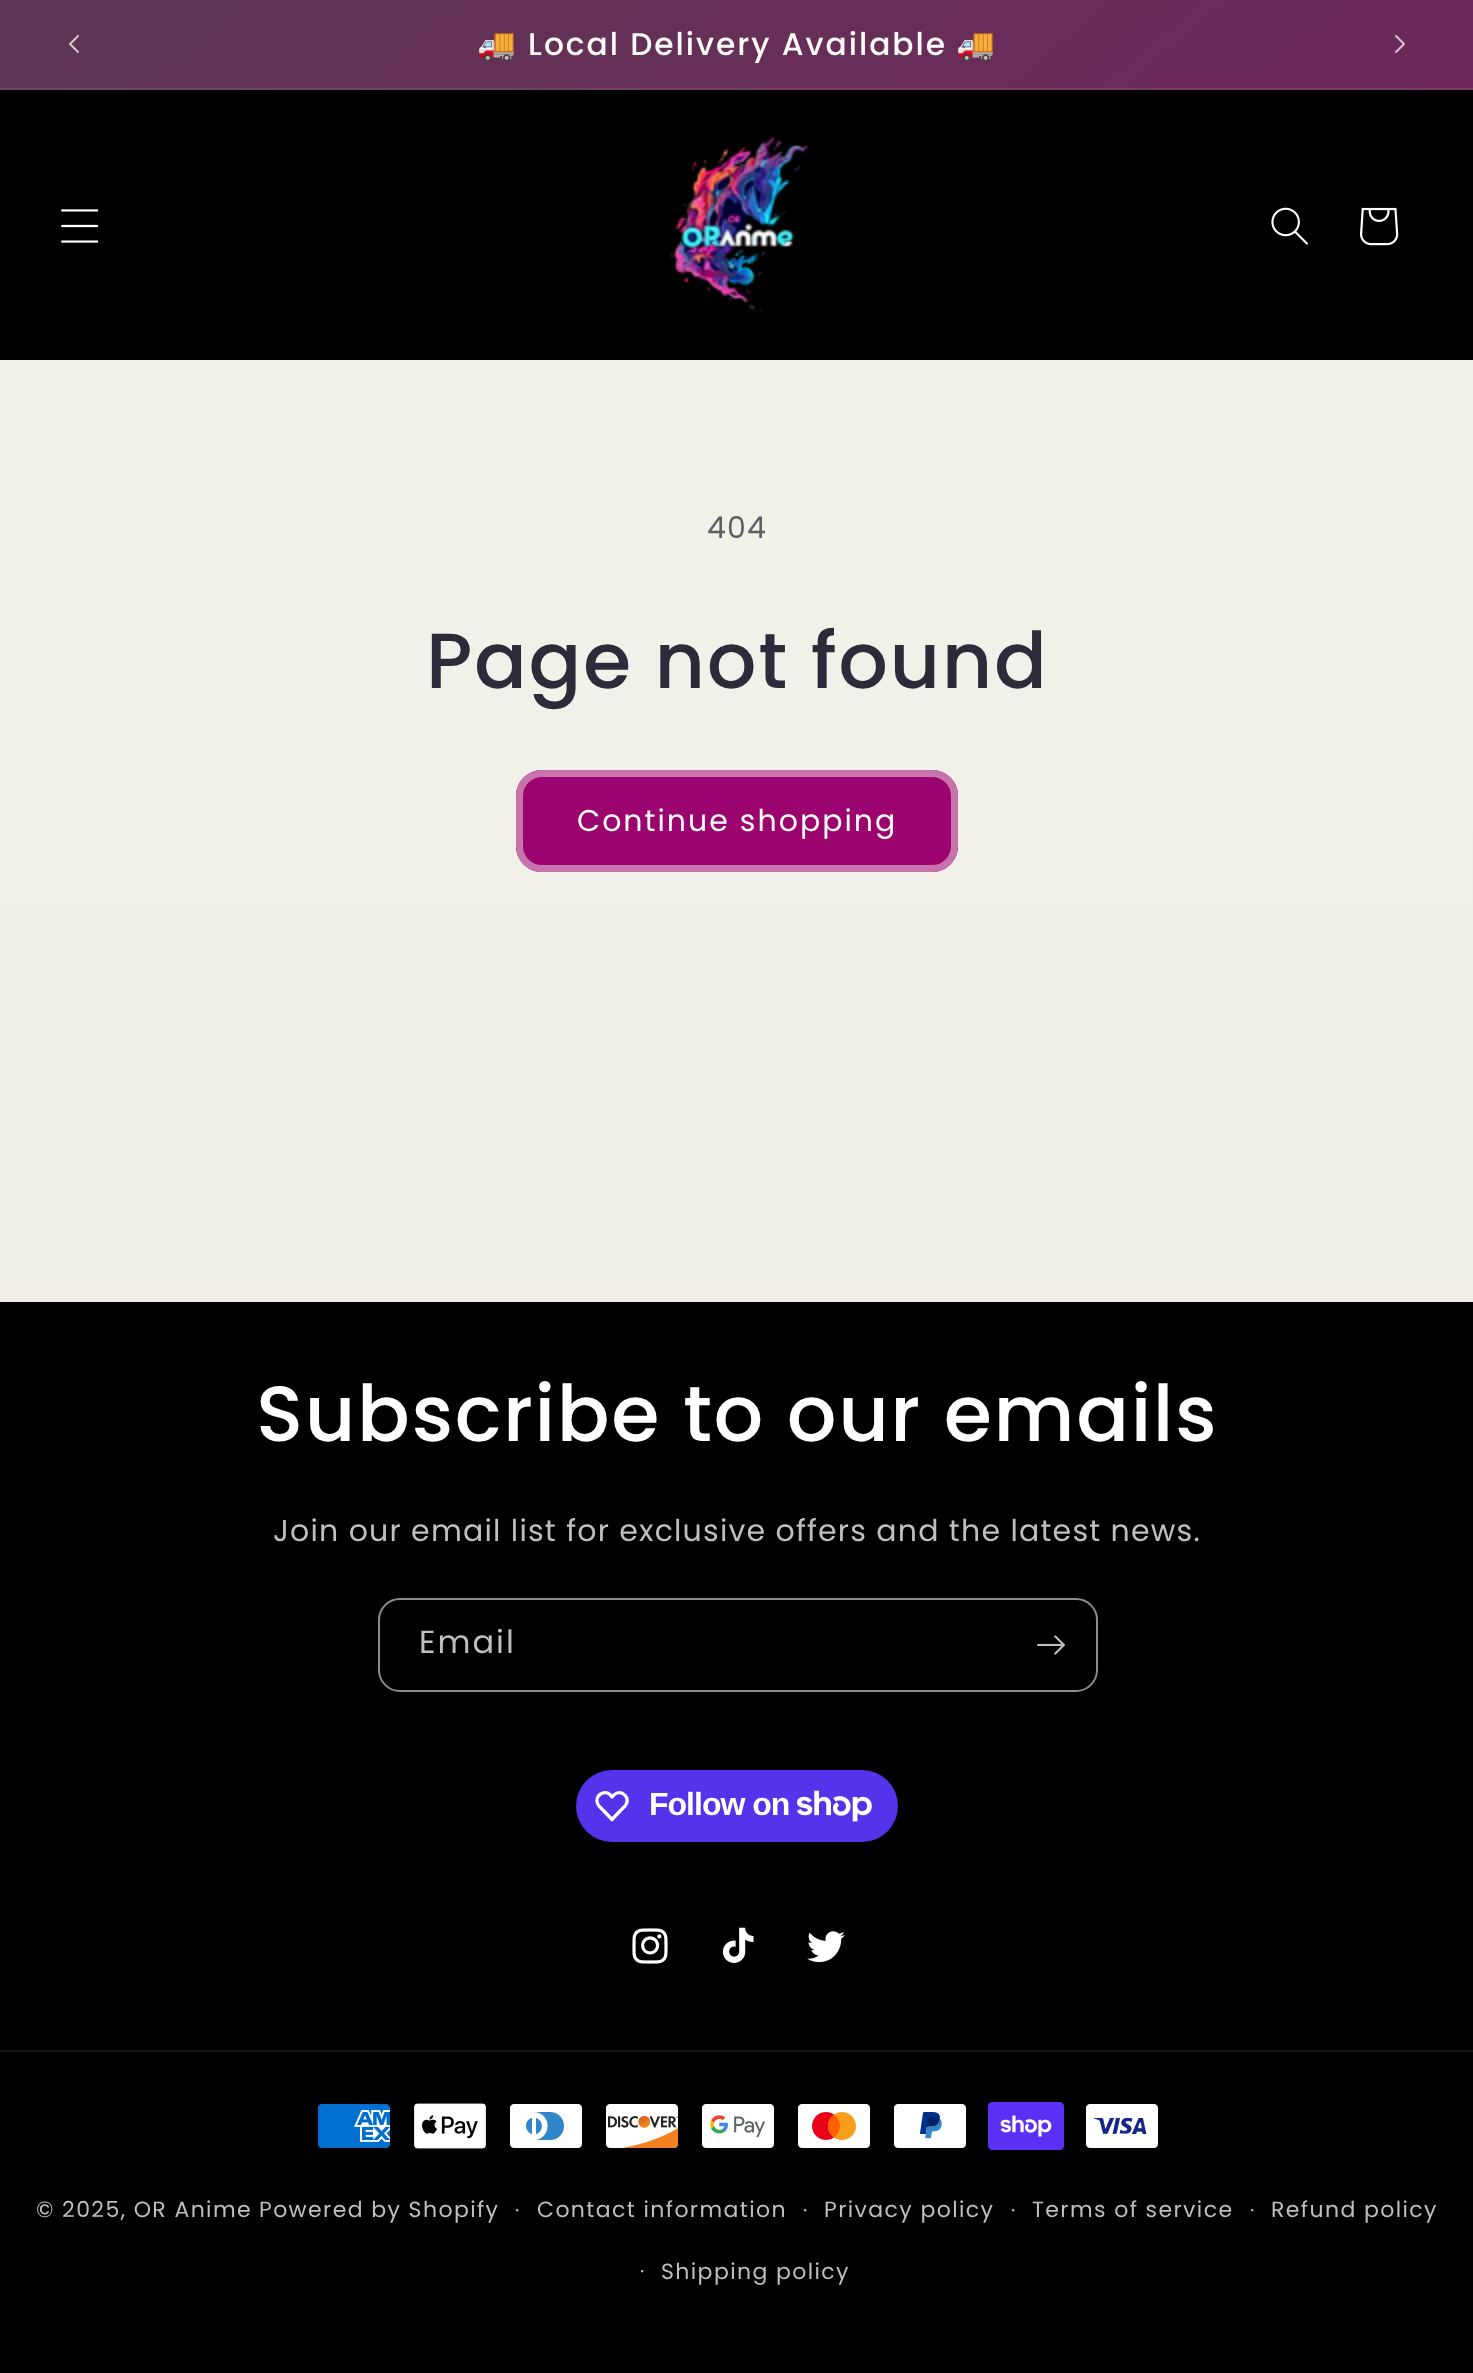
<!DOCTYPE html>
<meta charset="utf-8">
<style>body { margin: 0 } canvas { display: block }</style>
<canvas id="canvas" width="1473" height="2373"></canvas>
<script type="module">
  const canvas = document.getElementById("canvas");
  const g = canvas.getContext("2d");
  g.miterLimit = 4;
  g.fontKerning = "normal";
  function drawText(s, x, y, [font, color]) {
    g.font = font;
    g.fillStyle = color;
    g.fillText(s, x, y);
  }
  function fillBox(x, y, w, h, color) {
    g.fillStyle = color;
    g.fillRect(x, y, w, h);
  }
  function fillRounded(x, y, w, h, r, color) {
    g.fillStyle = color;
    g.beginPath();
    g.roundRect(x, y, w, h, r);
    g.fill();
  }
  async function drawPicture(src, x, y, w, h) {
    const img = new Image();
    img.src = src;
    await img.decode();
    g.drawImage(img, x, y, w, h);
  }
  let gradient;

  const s1 = ["31.25px Noto Color Emoji", "#FDFBF7"];
  const s2 = ["500 31.25px Poppins", "#FDFBF7"];
  const s3 = ["30px Poppins", "#5F5C65"];
  const s4 = ["500 78px Poppins", "#2E2A39"];
  const s5 = ["30px Poppins", "#FDFBF7"];
  const s6 = ["500 78px Poppins", "#FFFFFF"];
  const s7 = ["30px Poppins", "#BFBFBF"];
  const s8 = ["32px Poppins", "#BFBFBF"];
  const s9 = ["bold 32px Liberation Sans", "#FFFFFF"];
  const s10 = ["22px Poppins", "#BFBFBF"];
  const s11 = ["20px Poppins", "#BFBFBF"];

  fillBox(0, 0, 1473, 2373, "#FFFFFF");
  gradient = g.createLinearGradient(737, 0, 737, 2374);
  gradient.addColorStop(0, "#F0F4EC");
  gradient.addColorStop(1, "#F1EBE2");
  g.fillStyle = gradient;
  g.fillRect(0, 360, 1473, 942);
  gradient = g.createLinearGradient(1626, 2246, -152, 128);
  gradient.addColorStop(0, "#86106A");
  gradient.addColorStop(1, "#5E3653");
  g.fillStyle = gradient;
  g.fillRect(0, 0, 1473, 88);
  gradient = g.createLinearGradient(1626, 2246, -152, 128);
  gradient.addColorStop(0, "#902375");
  gradient.addColorStop(1, "#6B4660");
  g.fillStyle = gradient;
  g.fillRect(0, 88, 1473, 2);
  await drawPicture("pic1.png", 69, 35, 10, 18);
  g.letterSpacing = "2px";
  drawText("🚚", 477, 55, s1);
  drawText("Local Delivery Available", 528, 55, s2);
  drawText("🚚", 956, 55, s1);
  await drawPicture("pic2.png", 1395, 35, 10, 18);
  fillBox(0, 90, 1473, 270, "#000000");
  await drawPicture("pic3.png", 61, 209, 38, 34);
  await drawPicture("pic4.png", 669, 135, 140, 178);
  await drawPicture("pic5.png", 1271, 207, 37, 38);
  await drawPicture("pic6.png", 1360, 207, 39, 39);
  g.letterSpacing = "1.2px";
  drawText("404", 707, 538, s3);
  g.letterSpacing = "1.6px";
  drawText("Page not found", 426, 688, s4);
  fillRounded(516, 770, 442, 102, 26, "#9B046F");
  g.beginPath();
  g.roundRect(519, 773, 436, 96, 23);
  g.strokeStyle = "#9B046F";
  g.lineWidth = 6;
  g.stroke();
  g.beginPath();
  g.roundRect(519.5, 773.5, 435, 95, 22.5);
  g.strokeStyle = "rgba(253, 251, 247, 0.45)";
  g.lineWidth = 7;
  g.stroke();
  g.letterSpacing = "2px";
  drawText("Continue shopping", 577, 831, s5);
  fillBox(0, 1302, 1473, 1071, "#000000");
  g.letterSpacing = "1.6px";
  drawText("Subscribe to our emails", 256, 1441, s6);
  g.letterSpacing = "1.2px";
  drawText("Join our email list for exclusive offers and the latest news.", 273, 1541, s7);
  g.beginPath();
  g.roundRect(379, 1599, 718, 92, 21);
  g.strokeStyle = "#8C8C8C";
  g.lineWidth = 2;
  g.stroke();
  g.letterSpacing = "2px";
  drawText("Email", 419, 1653, s8);
  await drawPicture("pic7.png", 1037, 1635, 28, 20);
  fillRounded(576, 1770, 322, 72, 36, "#5433EB");
  g.beginPath();
  g.moveTo(610.5, 1795);
  g.lineTo(612, 1797);
  g.bezierCurveTo(613.5, 1795.5, 615, 1793.5, 617, 1793);
  g.bezierCurveTo(623, 1791, 629, 1797.5, 626.5, 1803.5);
  g.bezierCurveTo(625.5, 1806.5, 622.5, 1808.5, 620.5, 1810.5);
  g.lineTo(612, 1819.5);
  g.lineTo(603.5, 1810.5);
  g.bezierCurveTo(601.5, 1808.5, 598.5, 1806.5, 597.5, 1803.5);
  g.bezierCurveTo(594.5, 1795.5, 604.5, 1789, 610.5, 1795);
  g.closePath();
  g.strokeStyle = "#FFFFFF";
  g.lineWidth = 3.3;
  g.lineJoin = "round";
  g.stroke();
  g.letterSpacing = "-1px";
  drawText("Follow on", 649, 1815, s9);
  await drawPicture("pic8.png", 797, 1790, 75, 32);
  await drawPicture("pic9.png", 632, 1928, 36, 36);
  await drawPicture("pic10.png", 722, 1927, 32, 36);
  await drawPicture("pic11.png", 807, 1931, 38, 32);
  fillBox(0, 2050, 1473, 2, "#141414");
  await drawPicture("pic12.png", 318, 2104, 72, 44);
  await drawPicture("pic13.png", 414, 2103, 72, 46);
  await drawPicture("pic14.png", 510, 2104, 72, 44);
  await drawPicture("pic15.png", 606, 2104, 73, 44);
  await drawPicture("pic16.png", 702, 2104, 72, 44);
  await drawPicture("pic17.png", 798, 2104, 72, 44);
  await drawPicture("pic18.png", 894, 2104, 72, 44);
  await drawPicture("pic19.png", 988, 2102, 76, 48);
  await drawPicture("pic20.png", 1086, 2104, 72, 44);
  g.letterSpacing = "1.4px";
  drawText("© 2025, OR Anime", 36, 2217, s10);
  drawText("Powered by Shopify", 259, 2217, s10);
  drawText("·", 515, 2217, s11);
  drawText("Contact information", 537, 2217, s10);
  drawText("·", 803, 2217, s11);
  drawText("Privacy policy", 824, 2217, s10);
  drawText("·", 1011, 2217, s11);
  drawText("Terms of service", 1032, 2217, s10);
  drawText("·", 1250, 2217, s11);
  drawText("Refund policy", 1271, 2217, s10);
  drawText("·", 640, 2278, s11);
  drawText("Shipping policy", 661, 2279, s10);
</script>
